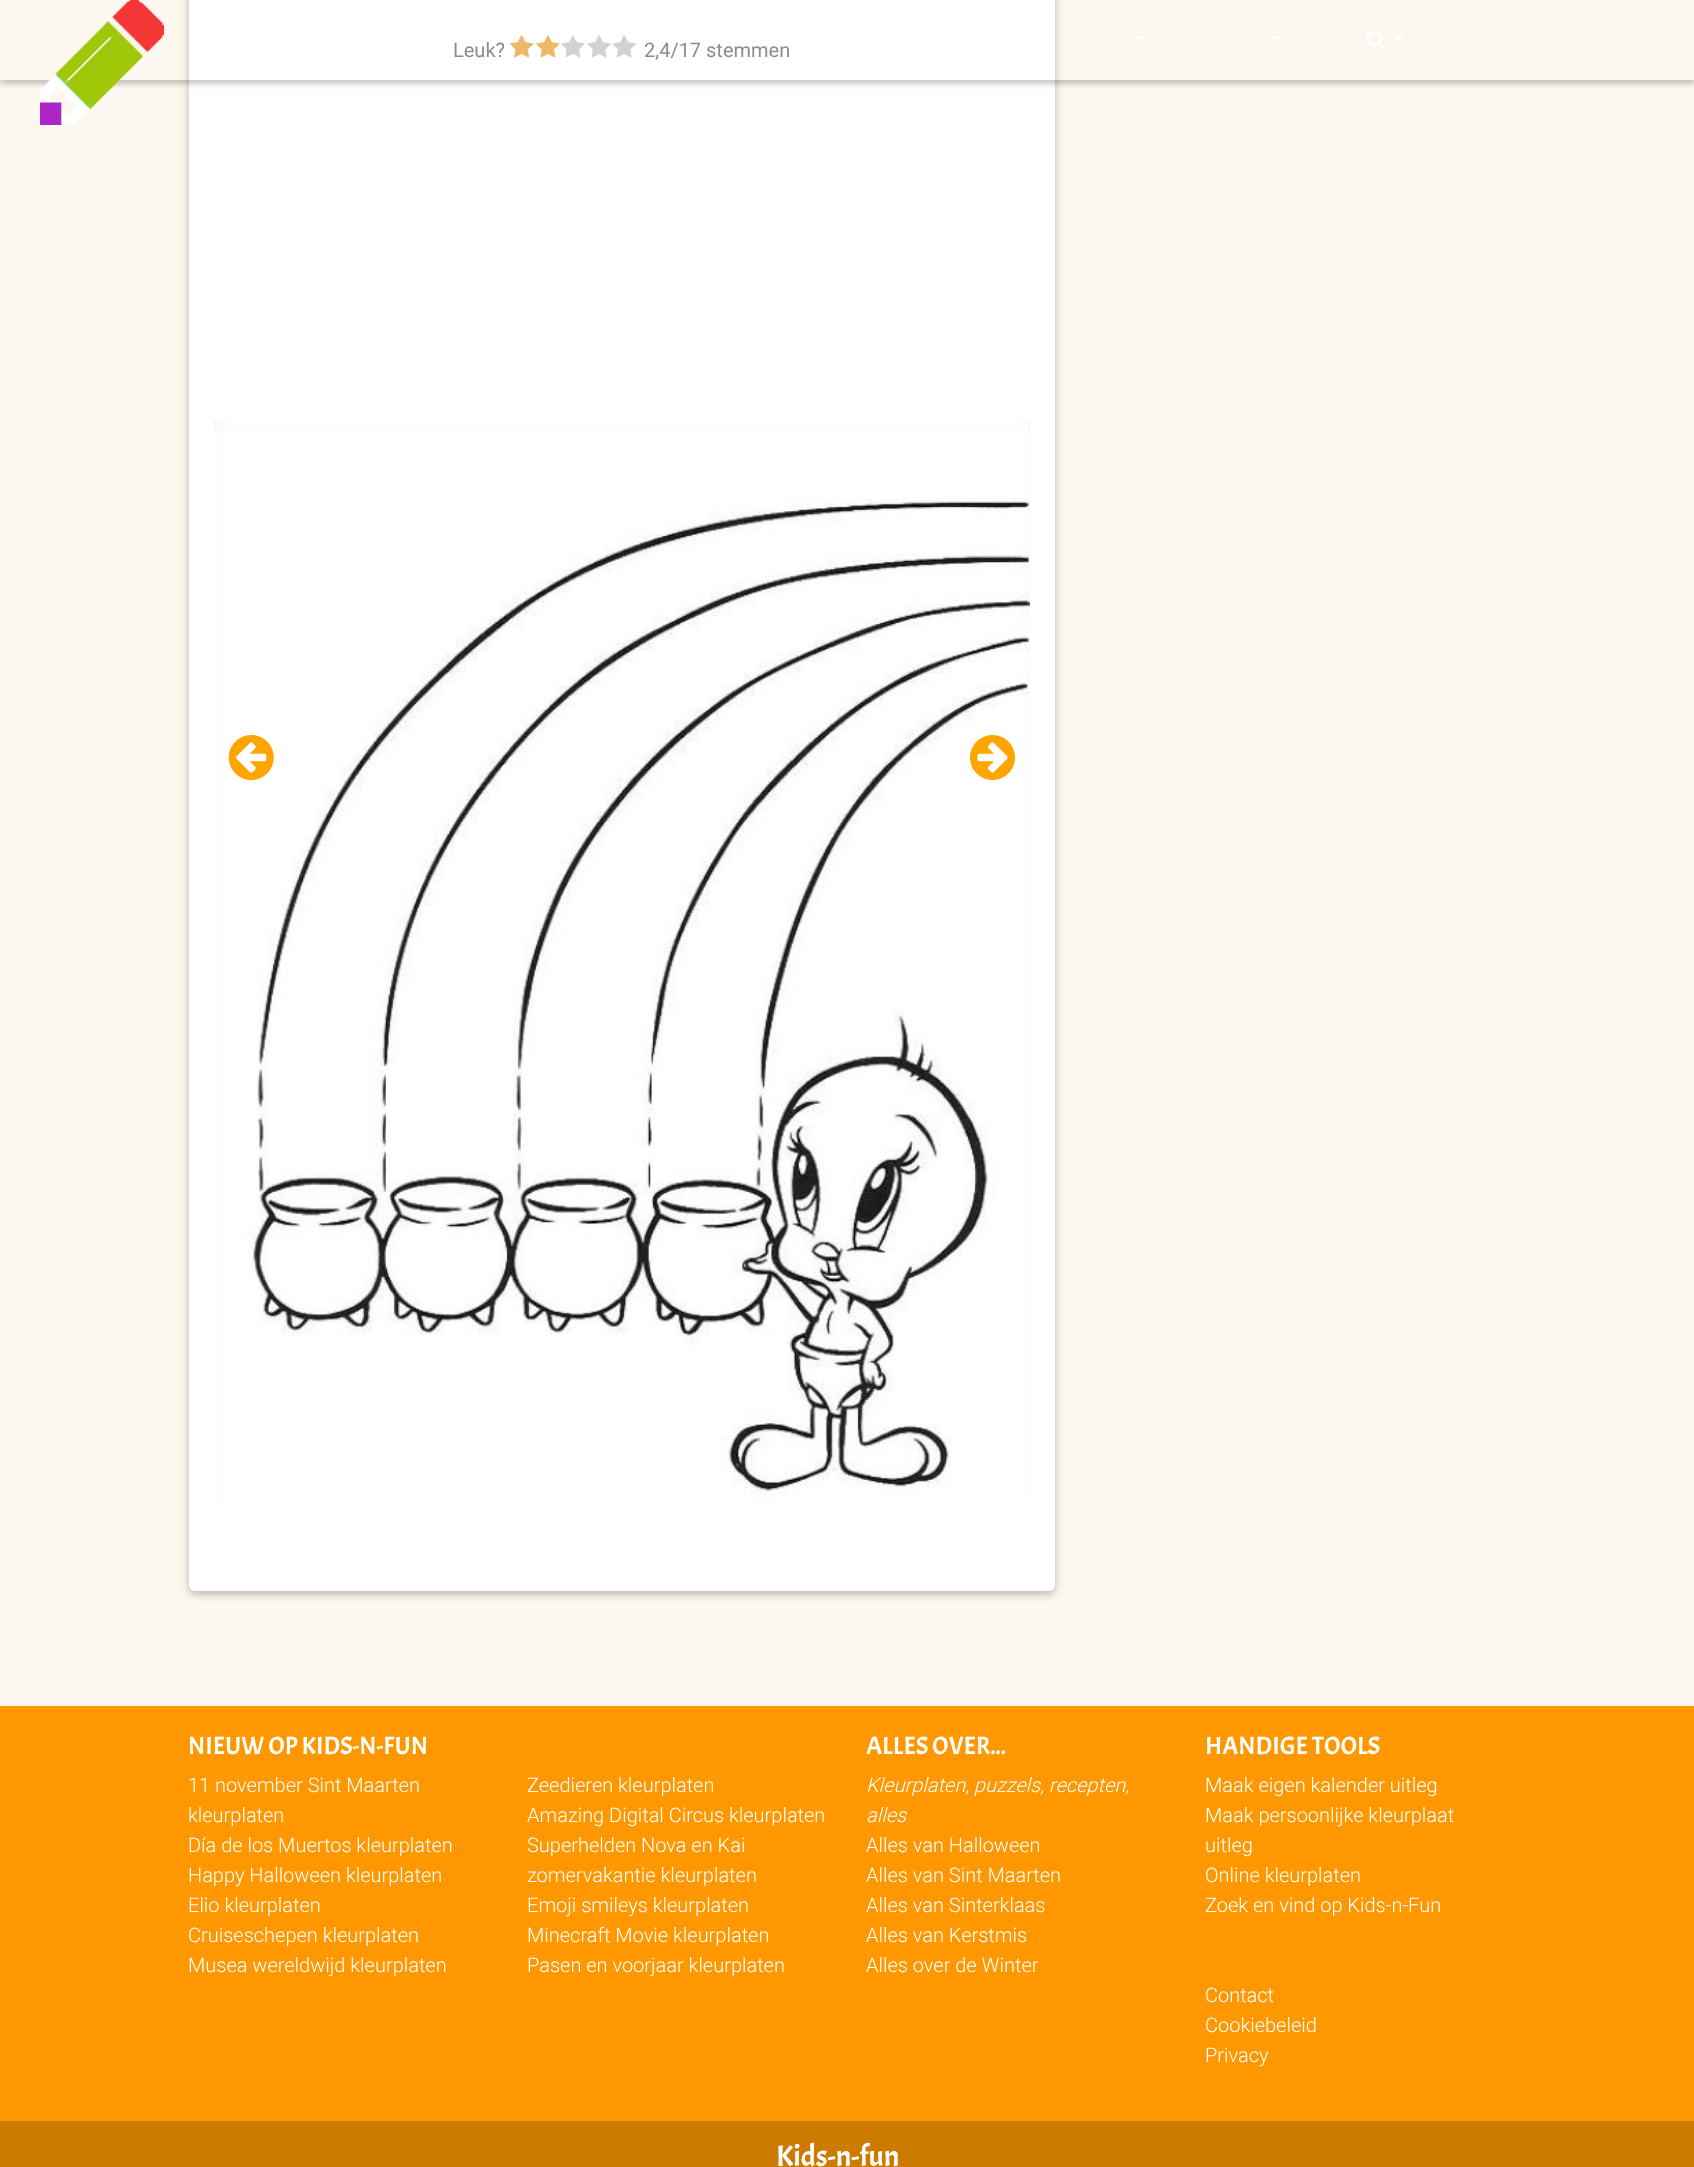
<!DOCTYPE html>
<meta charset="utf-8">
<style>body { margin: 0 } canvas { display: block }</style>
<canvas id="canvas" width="1694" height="2167"></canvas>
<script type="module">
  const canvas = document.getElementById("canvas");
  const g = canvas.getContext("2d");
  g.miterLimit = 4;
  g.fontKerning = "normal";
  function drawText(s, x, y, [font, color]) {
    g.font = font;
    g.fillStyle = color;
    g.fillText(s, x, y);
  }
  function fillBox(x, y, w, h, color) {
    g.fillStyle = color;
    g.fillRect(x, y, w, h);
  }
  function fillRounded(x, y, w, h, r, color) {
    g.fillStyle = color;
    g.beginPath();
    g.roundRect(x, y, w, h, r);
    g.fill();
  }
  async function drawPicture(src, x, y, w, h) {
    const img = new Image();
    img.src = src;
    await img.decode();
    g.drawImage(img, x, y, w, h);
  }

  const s1 = ["20px Roboto", "#868E96"];
  const s2 = ["25px Acme", "#FFFFFF"];
  const s3 = ["300 20px Roboto", "#FFFFFF"];
  const s4 = ["italic 300 20px Roboto", "#FFFFFF"];
  const s5 = ["30px Acme", "#FFFFFF"];

  fillBox(0, 0, 1694, 2167, "#FCF7EF");
  g.fillStyle = "rgba(0, 0, 0, 0.12)";
  g.filter = "blur(6px)";
  g.beginPath();
  g.roundRect(189, -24, 866, 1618, 6);
  g.fill();
  g.filter = "none";
  g.fillStyle = "rgba(0, 0, 0, 0.16)";
  g.filter = "blur(3px)";
  g.beginPath();
  g.roundRect(189, -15, 866, 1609, 6);
  g.fill();
  g.filter = "none";
  fillRounded(189, -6, 866, 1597, 6, "#FFFFFF");
  await drawPicture("pic3.png", 510, 35, 24, 23);
  await drawPicture("pic4.png", 536, 35, 24, 23);
  await drawPicture("pic5.png", 561, 35, 24, 23);
  await drawPicture("pic6.png", 587, 35, 24, 23);
  await drawPicture("pic6.png", 612, 35, 24, 23);
  g.save();
  g.beginPath();
  g.rect(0, 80, 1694, 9);
  g.clip();
  g.fillStyle = "rgba(0, 0, 0, 0.12)";
  g.filter = "blur(6px)";
  g.beginPath();
  g.rect(0, 3, 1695, 80);
  g.fill();
  g.filter = "none";
  g.restore();
  g.save();
  g.beginPath();
  g.rect(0, 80, 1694, 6);
  g.clip();
  g.fillStyle = "rgba(0, 0, 0, 0.16)";
  g.filter = "blur(3px)";
  g.beginPath();
  g.rect(0, 3, 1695, 80);
  g.fill();
  g.filter = "none";
  g.restore();
  await drawPicture("pic1.png", 40, 0, 124, 125);
  g.beginPath();
  g.moveTo(1135, 36);
  g.lineTo(1145, 36);
  g.lineTo(1140, 41);
  g.closePath();
  g.fill();
  g.beginPath();
  g.moveTo(1270, 36);
  g.lineTo(1280, 36);
  g.lineTo(1275, 41);
  g.closePath();
  g.fill();
  await drawPicture("pic2.png", 1366, 30, 19, 19);
  g.beginPath();
  g.moveTo(1394, 36);
  g.lineTo(1404, 36);
  g.lineTo(1399, 41);
  g.closePath();
  g.fill();
  drawText("Leuk?", 453, 57, s1);
  drawText("2,4/17 stemmen", 644, 57, s1);
  await drawPicture("pic7.png", 214, 420, 816, 1080);
  await drawPicture("pic8.png", 228, 735, 46, 45);
  await drawPicture("pic9.png", 970, 735, 45, 45);
  fillBox(0, 1706, 1694, 415, "#FF9800");
  drawText("NIEUW OP KIDS-N-FUN", 188, 1754, s2);
  drawText("11 november Sint Maarten", 188, 1792, s3);
  drawText("kleurplaten", 188, 1822, s3);
  drawText("Día de los Muertos kleurplaten", 188, 1852, s3);
  drawText("Happy Halloween kleurplaten", 188, 1882, s3);
  drawText("Elio kleurplaten", 188, 1912, s3);
  drawText("Cruiseschepen kleurplaten", 188, 1942, s3);
  drawText("Musea wereldwijd kleurplaten", 188, 1972, s3);
  drawText("Zeedieren kleurplaten", 527, 1792, s3);
  drawText("Amazing Digital Circus kleurplaten", 527, 1822, s3);
  drawText("Superhelden Nova en Kai", 527, 1852, s3);
  drawText("zomervakantie kleurplaten", 527, 1882, s3);
  drawText("Emoji smileys kleurplaten", 527, 1912, s3);
  drawText("Minecraft Movie kleurplaten", 527, 1942, s3);
  drawText("Pasen en voorjaar kleurplaten", 527, 1972, s3);
  drawText("ALLES OVER...", 866, 1754, s2);
  drawText("Kleurplaten, puzzels, recepten,", 866, 1792, s4);
  drawText("alles", 866, 1822, s4);
  drawText("Alles van Halloween", 866, 1852, s3);
  drawText("Alles van Sint Maarten", 866, 1882, s3);
  drawText("Alles van Sinterklaas", 866, 1912, s3);
  drawText("Alles van Kerstmis", 866, 1942, s3);
  drawText("Alles over de Winter", 866, 1972, s3);
  drawText("HANDIGE TOOLS", 1205, 1754, s2);
  drawText("Maak eigen kalender uitleg", 1205, 1792, s3);
  drawText("Maak persoonlijke kleurplaat", 1205, 1822, s3);
  drawText("uitleg", 1205, 1852, s3);
  drawText("Online kleurplaten", 1205, 1882, s3);
  drawText("Zoek en vind op Kids-n-Fun", 1205, 1912, s3);
  drawText("Contact", 1205, 2002, s3);
  drawText("Cookiebeleid", 1205, 2032, s3);
  drawText("Privacy", 1205, 2062, s3);
  fillBox(0, 2121, 1694, 46, "#CC7A00");
  drawText("Kids-n-fun", 776, 2166, s5);
</script>
